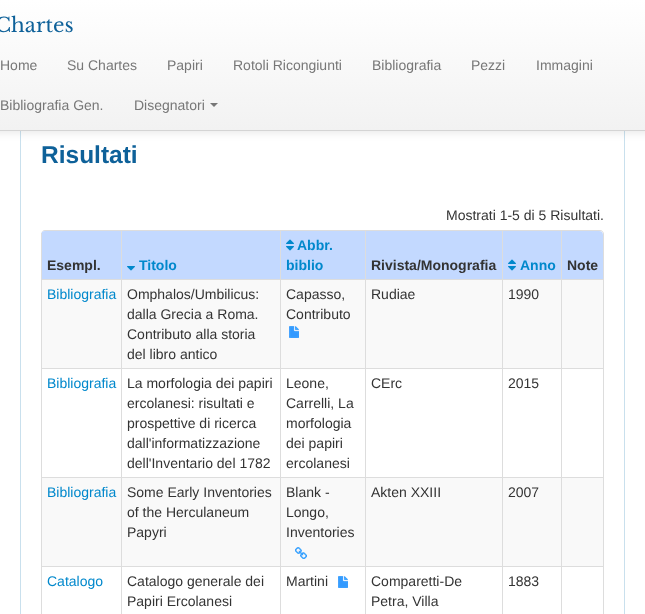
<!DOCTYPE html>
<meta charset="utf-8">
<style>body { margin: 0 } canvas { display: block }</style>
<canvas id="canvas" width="645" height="614"></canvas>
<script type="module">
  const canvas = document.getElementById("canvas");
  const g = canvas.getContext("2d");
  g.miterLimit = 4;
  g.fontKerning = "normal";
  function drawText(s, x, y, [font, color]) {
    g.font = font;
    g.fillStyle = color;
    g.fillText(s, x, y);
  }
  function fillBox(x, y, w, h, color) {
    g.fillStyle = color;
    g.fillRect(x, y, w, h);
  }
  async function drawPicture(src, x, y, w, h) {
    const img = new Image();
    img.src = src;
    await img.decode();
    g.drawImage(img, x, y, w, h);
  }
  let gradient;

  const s1 = ["20px Libre Baskerville", "#0E6199"];
  const s2 = ["14px Liberation Sans", "#777777"];
  const s3 = ["bold 24.5px Liberation Sans", "#0E6199"];
  const s4 = ["14px Liberation Sans", "#333333"];
  const s5 = ["bold 14px Liberation Sans", "#333333"];
  const s6 = ["bold 14px Liberation Sans", "#0088CC"];
  const s7 = ["14px Liberation Sans", "#0088CC"];

  fillBox(0, 0, 645, 614, "#FFFFFF");
  g.strokeStyle = "#C9E0ED";
  g.strokeRect(20.5, 5.5, 604, 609);
  g.fillStyle = "rgba(0, 0, 0, 0.1)";
  g.filter = "blur(5px)";
  g.beginPath();
  g.rect(-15, 1, 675, 131);
  g.fill();
  g.filter = "none";
  gradient = g.createLinearGradient(323, 0, 323, 130);
  gradient.addColorStop(0, "#FFFFFF");
  gradient.addColorStop(1, "#F2F2F2");
  g.fillStyle = gradient;
  g.fillRect(0, 0, 645, 130);
  fillBox(0, 130, 645, 1, "#D4D4D4");
  drawText("Chartes", -5, 32, s1);
  drawText("Home", 0, 70, s2);
  drawText("Su Chartes", 67, 70, s2);
  drawText("Papiri", 167, 70, s2);
  drawText("Rotoli Ricongiunti", 233, 70, s2);
  drawText("Bibliografia", 372, 70, s2);
  drawText("Pezzi", 471, 70, s2);
  drawText("Immagini", 536, 70, s2);
  drawText("Bibliografia Gen.", 0, 110, s2);
  drawText("Disegnatori", 134, 110, s2);
  g.beginPath();
  g.moveTo(210, 103);
  g.lineTo(218, 103);
  g.lineTo(214, 107);
  g.closePath();
  g.fill();
  drawText("Risultati", 41, 163, s3);
  drawText("Mostrati 1-5 di 5 Risultati.", 446, 220, s4);
  g.fillStyle = "#DDDDDD";
  g.beginPath();
  g.moveTo(45, 230);
  g.lineTo(600, 230);
  g.bezierCurveTo(602, 230, 604, 232, 604, 234);
  g.lineTo(604, 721);
  g.bezierCurveTo(604, 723, 602, 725, 600, 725);
  g.lineTo(45, 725);
  g.bezierCurveTo(43, 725, 41, 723, 41, 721);
  g.lineTo(41, 234);
  g.bezierCurveTo(41, 232, 43, 230, 45, 230);
  g.closePath();
  g.moveTo(45, 231);
  g.lineTo(600, 231);
  g.bezierCurveTo(602, 231, 603, 232, 603, 234);
  g.lineTo(603, 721);
  g.bezierCurveTo(603, 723, 602, 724, 600, 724);
  g.lineTo(45, 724);
  g.bezierCurveTo(43, 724, 41, 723, 41, 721);
  g.lineTo(41, 234);
  g.bezierCurveTo(41, 232, 43, 231, 45, 231);
  g.closePath();
  g.fill("evenodd");
  g.fillStyle = "#C3D9FF";
  g.beginPath();
  g.roundRect(41, 231, 80, 48, [4, 0, 0, 0]);
  g.fill();
  fillBox(41, 233, 1, 46, "#DDDDDD");
  drawText("Esempl.", 47, 270, s5);
  fillBox(122, 231, 158, 48, "#C3D9FF");
  fillBox(121, 231, 1, 48, "#DDDDDD");
  await drawPicture("pic1.png", 127, 266, 8, 5);
  drawText("Titolo", 139, 270, s6);
  fillBox(281, 231, 84, 48, "#C3D9FF");
  fillBox(280, 231, 1, 48, "#DDDDDD");
  await drawPicture("pic2.png", 286, 239, 8, 12);
  drawText("Abbr.", 297, 250, s6);
  drawText("biblio", 286, 270, s6);
  fillBox(366, 231, 136, 48, "#C3D9FF");
  fillBox(365, 231, 1, 48, "#DDDDDD");
  drawText("Rivista/Monografia", 371, 270, s5);
  fillBox(503, 231, 58, 48, "#C3D9FF");
  fillBox(502, 231, 1, 48, "#DDDDDD");
  await drawPicture("pic2.png", 508, 259, 8, 12);
  drawText("Anno", 520, 270, s6);
  g.fillStyle = "#C3D9FF";
  g.beginPath();
  g.roundRect(561, 231, 42, 48, [0, 4, 0, 0]);
  g.fill();
  fillBox(561, 231, 1, 48, "#DDDDDD");
  drawText("Note", 567, 270, s5);
  fillBox(42, 280, 79, 88, "#F9F9F9");
  fillBox(41, 279, 562, 1, "#DDDDDD");
  fillBox(41, 279, 1, 89, "#DDDDDD");
  drawText("Bibliografia", 47, 299, s7);
  fillBox(122, 280, 158, 88, "#F9F9F9");
  fillBox(121, 279, 1, 89, "#DDDDDD");
  drawText("Omphalos/Umbilicus:", 127, 299, s4);
  drawText("dalla Grecia a Roma.", 127, 319, s4);
  drawText("Contributo alla storia", 127, 339, s4);
  drawText("del libro antico", 127, 359, s4);
  fillBox(281, 280, 84, 88, "#F9F9F9");
  fillBox(280, 279, 1, 89, "#DDDDDD");
  drawText("Capasso,", 286, 299, s4);
  drawText("Contributo", 286, 319, s4);
  await drawPicture("pic3.png", 289, 326, 10, 12);
  fillBox(366, 280, 136, 88, "#F9F9F9");
  fillBox(365, 279, 1, 89, "#DDDDDD");
  drawText("Rudiae", 371, 299, s4);
  fillBox(503, 280, 58, 88, "#F9F9F9");
  fillBox(502, 279, 1, 89, "#DDDDDD");
  drawText("1990", 508, 299, s4);
  fillBox(562, 280, 41, 88, "#F9F9F9");
  fillBox(561, 279, 1, 89, "#DDDDDD");
  fillBox(41, 368, 562, 1, "#DDDDDD");
  fillBox(41, 368, 1, 109, "#DDDDDD");
  drawText("Bibliografia", 47, 388, s7);
  fillBox(121, 368, 1, 109, "#DDDDDD");
  drawText("La morfologia dei papiri", 127, 388, s4);
  drawText("ercolanesi: risultati e", 127, 408, s4);
  drawText("prospettive di ricerca", 127, 428, s4);
  drawText("dall'informatizzazione", 127, 448, s4);
  drawText("dell'Inventario del 1782", 127, 468, s4);
  fillBox(280, 368, 1, 109, "#DDDDDD");
  drawText("Leone,", 286, 388, s4);
  drawText("Carrelli, La", 286, 408, s4);
  drawText("morfologia", 286, 428, s4);
  drawText("dei papiri", 286, 448, s4);
  drawText("ercolanesi", 286, 468, s4);
  fillBox(365, 368, 1, 109, "#DDDDDD");
  drawText("CErc", 371, 388, s4);
  fillBox(502, 368, 1, 109, "#DDDDDD");
  drawText("2015", 508, 388, s4);
  fillBox(561, 368, 1, 109, "#DDDDDD");
  fillBox(42, 478, 79, 88, "#F9F9F9");
  fillBox(41, 477, 562, 1, "#DDDDDD");
  fillBox(41, 477, 1, 89, "#DDDDDD");
  drawText("Bibliografia", 47, 497, s7);
  fillBox(122, 478, 158, 88, "#F9F9F9");
  fillBox(121, 477, 1, 89, "#DDDDDD");
  drawText("Some Early Inventories", 127, 497, s4);
  drawText("of the Herculaneum", 127, 517, s4);
  drawText("Papyri", 127, 537, s4);
  fillBox(281, 478, 84, 88, "#F9F9F9");
  fillBox(280, 477, 1, 89, "#DDDDDD");
  drawText("Blank -", 286, 497, s4);
  drawText("Longo,", 286, 517, s4);
  drawText("Inventories", 286, 537, s4);
  await drawPicture("pic4.png", 295, 547, 12, 12);
  fillBox(366, 478, 136, 88, "#F9F9F9");
  fillBox(365, 477, 1, 89, "#DDDDDD");
  drawText("Akten XXIII", 371, 497, s4);
  fillBox(503, 478, 58, 88, "#F9F9F9");
  fillBox(502, 477, 1, 89, "#DDDDDD");
  drawText("2007", 508, 497, s4);
  fillBox(562, 478, 41, 88, "#F9F9F9");
  fillBox(561, 477, 1, 89, "#DDDDDD");
  fillBox(41, 566, 562, 1, "#DDDDDD");
  fillBox(41, 566, 1, 48, "#DDDDDD");
  drawText("Catalogo", 47, 586, s7);
  fillBox(121, 566, 1, 48, "#DDDDDD");
  drawText("Catalogo generale dei", 127, 586, s4);
  drawText("Papiri Ercolanesi", 127, 606, s4);
  fillBox(280, 566, 1, 48, "#DDDDDD");
  drawText("Martini", 286, 586, s4);
  await drawPicture("pic5.png", 338, 576, 10, 12);
  fillBox(365, 566, 1, 48, "#DDDDDD");
  drawText("Comparetti-De", 371, 586, s4);
  drawText("Petra, Villa", 371, 606, s4);
  fillBox(502, 566, 1, 48, "#DDDDDD");
  drawText("1883", 508, 586, s4);
  fillBox(561, 566, 1, 48, "#DDDDDD");
</script>
